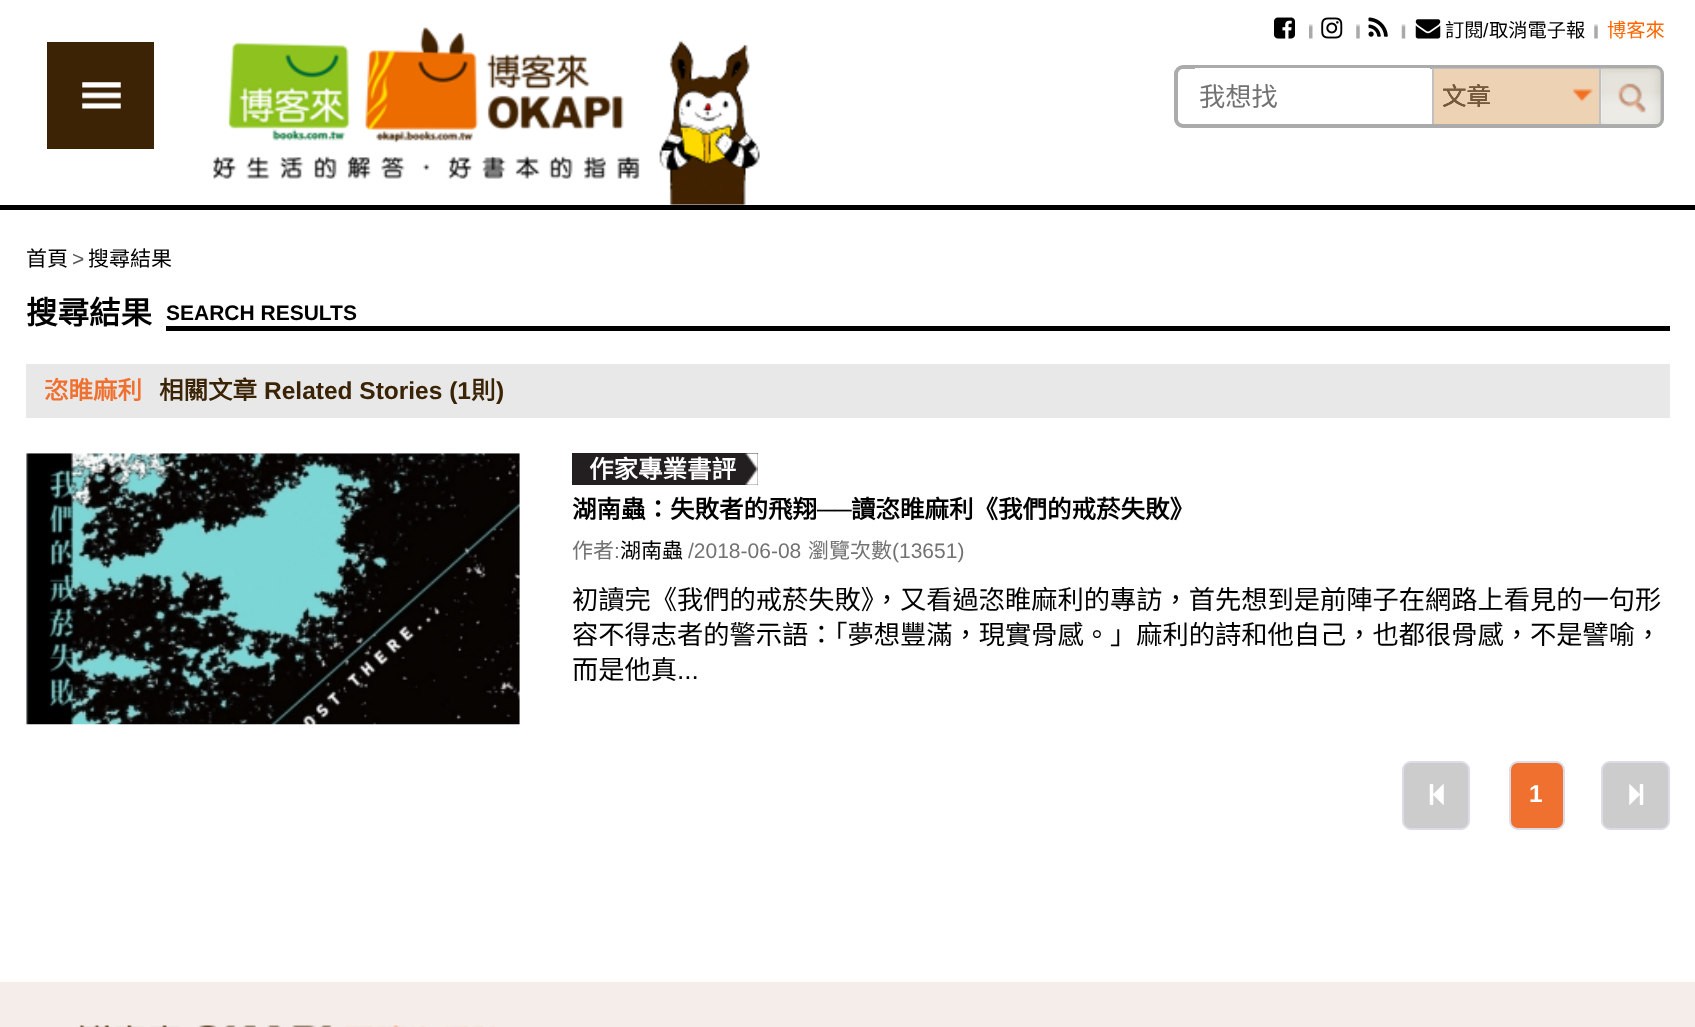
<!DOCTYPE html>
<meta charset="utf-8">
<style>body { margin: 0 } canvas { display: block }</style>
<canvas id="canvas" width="1695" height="1027"></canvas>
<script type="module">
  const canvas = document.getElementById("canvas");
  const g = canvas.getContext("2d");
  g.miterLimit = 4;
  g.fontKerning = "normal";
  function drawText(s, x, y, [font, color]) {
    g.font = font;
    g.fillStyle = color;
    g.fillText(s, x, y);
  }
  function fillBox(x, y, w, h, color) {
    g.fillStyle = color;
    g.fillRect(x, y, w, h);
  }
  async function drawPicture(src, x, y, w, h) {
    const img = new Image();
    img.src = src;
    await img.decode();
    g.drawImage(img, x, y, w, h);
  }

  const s1 = ["19.25px Noto Sans CJK TC", "#000000"];
  const s2 = ["19.25px Liberation Sans", "#000000"];
  const s3 = ["19.25px Noto Sans CJK TC", "#FF6600"];
  const s4 = ["26.25px Noto Sans CJK TC", "#727272"];
  const s5 = ["24.5px Noto Sans CJK TC", "#3B2306"];
  const s6 = ["24.5px Noto Sans CJK TC", "#755C3F"];
  const s7 = ["21px Noto Sans CJK TC", "#000000"];
  const s8 = ["21px Liberation Sans", "#595959"];
  const s9 = ["bold 31.5px Noto Sans CJK TC", "#000000"];
  const s10 = ["bold 21px Liberation Sans", "#000000"];
  const s11 = ["bold 24.5px Noto Sans CJK TC", "#F0702F"];
  const s12 = ["bold 24.5px Noto Sans CJK TC", "#3B2306"];
  const s13 = ["bold 24.5px Liberation Sans", "#3B2306"];
  const s14 = ["bold 24.5px Noto Sans CJK TC", "#FFFFFF"];
  const s15 = ["bold 24.5px Noto Sans CJK TC", "#000000"];
  const s16 = ["bold 24.5px Liberation Sans", "#000000"];
  const s17 = ["21px Noto Sans CJK TC", "#727272"];
  const s18 = ["21px Liberation Sans", "#727272"];
  const s19 = ["26.25px Noto Sans CJK TC", "#000000"];
  const s20 = ["26.25px Liberation Sans", "#000000"];
  const s21 = ["bold 24.5px Liberation Sans", "#FFFFFF"];

  fillBox(0, 0, 1695, 1027, "#FFFFFF");
  fillBox(47, 42, 107, 107, "#3C2305");
  await drawPicture("pic1.png", 82, 82, 39, 27);
  await drawPicture("pic2.png", 213, 27, 427, 152);
  await drawPicture("pic3.png", 659, 40, 101, 165);
  await drawPicture("pic4.png", 1309, 24, 4, 15);
  await drawPicture("pic5.png", 1274, 17, 21, 22);
  await drawPicture("pic6.png", 1356, 24, 4, 15);
  await drawPicture("pic7.png", 1321, 17, 22, 22);
  await drawPicture("pic8.png", 1401, 24, 5, 15);
  await drawPicture("pic9.png", 1368, 17, 20, 20);
  await drawPicture("pic6.png", 1594, 24, 4, 15);
  await drawPicture("pic10.png", 1415, 19, 26, 20);
  drawText("訂閱", 1445, 37, s1);
  drawText("/", 1483, 37, s2);
  drawText("取消電子報", 1489, 37, s1);
  drawText("博客來", 1607, 37, s3);
  g.beginPath();
  g.roundRect(1176, 67, 486, 59, 7);
  g.strokeStyle = "#ABABAB";
  g.lineWidth = 4;
  g.stroke();
  fillBox(1195, 68, 235, 1, "#FFFFFF");
  drawText("我想找", 1199, 106, s4);
  fillBox(1434, 69, 165, 55, "#EED2B4");
  await drawPicture("pic11.png", 1572, 88, 21, 14);
  g.fillStyle = "#C0C0C0";
  g.beginPath();
  g.moveTo(1434, 69);
  g.lineTo(1434, 124);
  g.lineTo(1432, 124);
  g.lineTo(1432, 68);
  g.lineTo(1601, 68);
  g.lineTo(1601, 124);
  g.lineTo(1599, 124);
  g.lineTo(1599, 69);
  g.closePath();
  g.fill();
  drawText("文章", 1442, 105, s5);
  drawText("文章", 1442, 105, s6);
  await drawPicture("pic12.png", 1601, 68, 60, 57);
  fillBox(0, 205, 1695, 5, "#000000");
  drawText("首頁", 26, 266, s7);
  drawText(">", 72, 266, s8);
  drawText("搜尋結果", 88, 266, s7);
  fillBox(166, 326, 1504, 5, "#000000");
  drawText("搜尋結果", 26, 324, s9);
  drawText("SEARCH RESULTS", 166, 320, s10);
  fillBox(26, 364, 1644, 54, "#E8E8E8");
  drawText("恣睢麻利", 44, 399, s11);
  drawText("相關文章", 159, 399, s12);
  drawText("Related Stories (1", 264, 399, s13);
  drawText("則", 471, 399, s12);
  drawText(")", 496, 399, s13);
  await drawPicture("pic13.png", 26, 453, 494, 272);
  fillBox(572, 453, 186, 32, "#231F20");
  await drawPicture("pic14.png", 745, 453, 13, 32);
  drawText("作家專業書評", 589, 478, s14);
  drawText("湖南蟲：失敗者的飛翔", 572, 518, s15);
  drawText("──", 817, 518, s16);
  drawText("讀恣睢麻利《我們的戒菸失敗》", 851, 518, s15);
  drawText("作者", 572, 558, s17);
  drawText(":", 614, 558, s18);
  drawText("湖南蟲", 620, 558, s7);
  drawText("/2018-06-08", 688, 558, s18);
  drawText("瀏覽次數", 808, 558, s17);
  drawText("(13651)", 892, 558, s18);
  drawText("初讀完《我們的戒菸失敗》，又看過恣睢麻利的專訪，首先想到是前陣子在網路上看見的一句形", 572, 609, s19);
  drawText("容不得志者的警示語：「夢想豐滿，現實骨感。」麻利的詩和他自己，也都很骨感，不是譬喻，", 572, 644, s19);
  drawText("而是他真", 572, 679, s19);
  drawText("...", 677, 679, s20);
  g.fillStyle = "#CCCCCC";
  g.beginPath();
  g.roundRect(1403, 762, 66, 67, 8);
  g.fill();
  g.strokeStyle = "#DBDCE7";
  g.lineWidth = 2;
  g.stroke();
  await drawPicture("pic15.png", 1429, 784, 15, 21);
  g.fillStyle = "#F0702F";
  g.beginPath();
  g.roundRect(1510, 762, 54, 67, 8);
  g.fill();
  g.stroke();
  drawText("1", 1529, 802, s21);
  g.fillStyle = "#CCCCCC";
  g.beginPath();
  g.roundRect(1602, 762, 67, 67, 8);
  g.fill();
  g.stroke();
  await drawPicture("pic16.png", 1629, 784, 15, 21);
  fillBox(0, 982, 1695, 45, "#F4EDE9");
  await drawPicture("pic17.png", 79, 1025, 416, 2);
</script>
